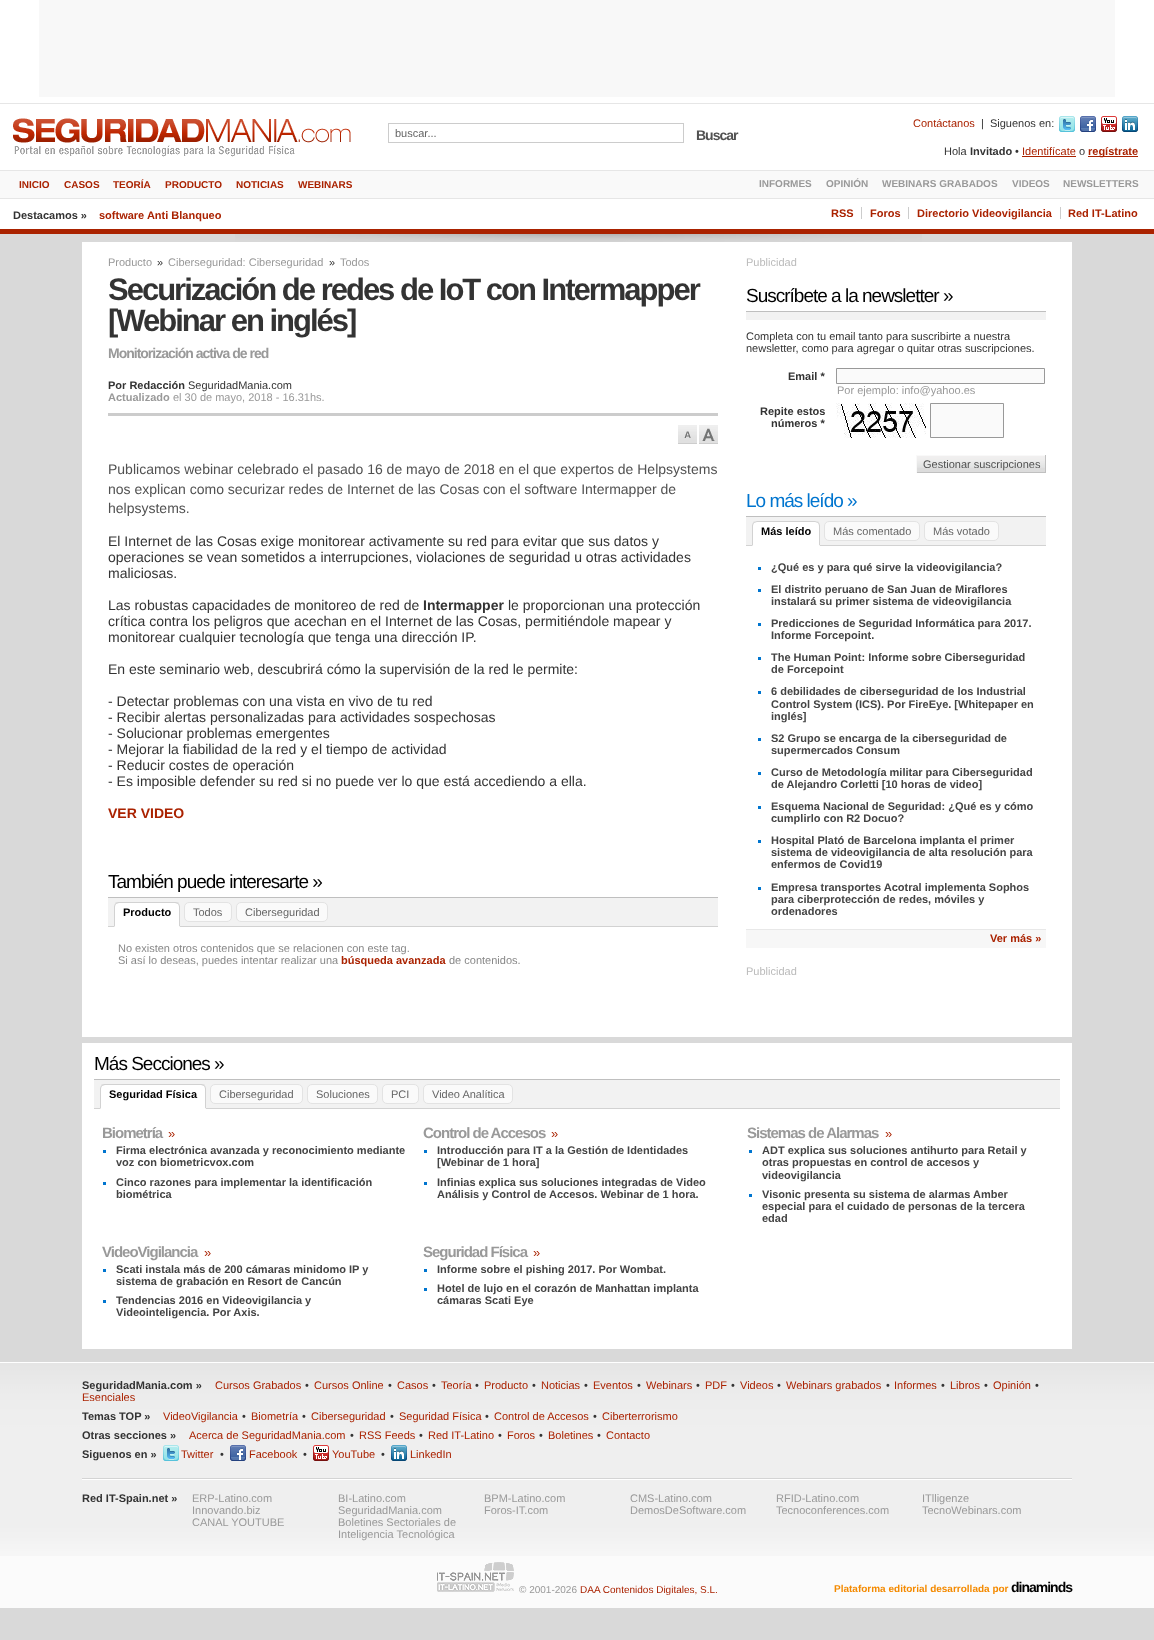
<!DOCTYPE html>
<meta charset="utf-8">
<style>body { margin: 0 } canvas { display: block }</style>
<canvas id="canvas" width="1154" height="1640"></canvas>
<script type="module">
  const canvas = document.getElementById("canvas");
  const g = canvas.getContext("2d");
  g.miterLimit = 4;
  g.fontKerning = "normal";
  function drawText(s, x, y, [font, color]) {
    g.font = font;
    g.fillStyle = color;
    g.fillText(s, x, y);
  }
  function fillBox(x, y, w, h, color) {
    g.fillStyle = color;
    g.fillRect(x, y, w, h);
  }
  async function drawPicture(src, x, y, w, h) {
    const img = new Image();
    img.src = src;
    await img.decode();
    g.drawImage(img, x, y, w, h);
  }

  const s1 = ["11px Liberation Sans", "#AA2200"];
  const s2 = ["11px Liberation Sans", "#333333"];
  const s3 = ["11px Liberation Sans", "#666666"];
  const s4 = ["bold 14px Liberation Sans", "#515151"];
  const s5 = ["bold 11px Liberation Sans", "#333333"];
  const s6 = ["bold 11px Liberation Sans", "#AA2200"];
  const s7 = ["bold 10px Liberation Sans", "#AA2200"];
  const s8 = ["bold 10px Liberation Sans", "#999999"];
  const s9 = ["11px Liberation Sans", "#999999"];
  const s10 = ["bold 31px Liberation Sans", "#333333"];
  const s11 = ["bold 14px Liberation Sans", "#999999"];
  const s12 = ["bold 11px Liberation Sans", "#999999"];
  const s13 = ["14px Liberation Sans", "#515151"];
  const s14 = ["14px Liberation Sans", "#333333"];
  const s15 = ["bold 14px Liberation Sans", "#333333"];
  const s16 = ["bold 14px Liberation Sans", "#AA2200"];
  const s17 = ["19px Liberation Sans", "#000000"];
  const s18 = ["bold 11px Liberation Sans", "#000000"];
  const s19 = ["11px Liberation Sans", "#888888"];
  const s20 = ["11px Liberation Sans", "#BBBBBB"];
  const s21 = ["11px Liberation Sans", "#515151"];
  const s22 = ["19px Liberation Sans", "#0075CF"];
  const s23 = ["bold 11px Liberation Sans", "#444444"];
  const s24 = ["bold 15px Liberation Sans", "#999999"];
  const s25 = ["13px Liberation Sans", "#AA2200"];
  const s26 = ["10px Liberation Sans", "#999999"];
  const s27 = ["10px Liberation Sans", "#AA2200"];
  const s28 = ["bold 10px Liberation Sans", "#F48A00"];
  const s29 = ["bold 14px Liberation Sans", "#000000"];

  fillBox(0, 0, 1154, 1640, "#D9D9D9");
  fillBox(0, 0, 1154, 229, "#FFFFFF");
  drawText("Contáctanos", 913, 127, s1);
  drawText("|  Siguenos en:", 981, 127, s2);
  await drawPicture("pic1.png", 1059, 116, 16, 16);
  await drawPicture("pic2.png", 1080, 116, 16, 16);
  await drawPicture("pic3.png", 1101, 116, 16, 16);
  await drawPicture("pic4.png", 1122, 116, 16, 16);
  g.strokeStyle = "#CCCCCC";
  g.strokeRect(388.5, 123.5, 295, 19);
  drawText("buscar...", 395, 137, s3);
  g.letterSpacing = "-1px";
  drawText("Buscar", 696, 140, s4);
  g.letterSpacing = "0px";
  drawText("Hola", 944, 155, s2);
  drawText("Invitado", 970, 155, s5);
  drawText("•", 1015, 155, s2);
  drawText("Identifícate", 1022, 155, s1);
  fillBox(1022, 156, 54, 1, "#AA2200");
  drawText("o", 1079, 155, s2);
  fillBox(1088, 156, 50, 1, "#AA2200");
  drawText("regístrate", 1088, 155, s6);
  fillBox(0, 171, 1154, 27, "#F9F9F9");
  fillBox(0, 170, 1154, 1, "#E6E6E6");
  fillBox(0, 198, 1154, 1, "#E6E6E6");
  drawText("INICIO", 19, 188, s7);
  drawText("CASOS", 64, 188, s7);
  drawText("TEORÍA", 113, 188, s7);
  drawText("PRODUCTO", 165, 188, s7);
  drawText("NOTICIAS", 236, 188, s7);
  drawText("WEBINARS", 298, 188, s7);
  drawText("INFORMES", 759, 187, s8);
  drawText("OPINIÓN", 826, 187, s8);
  drawText("WEBINARS GRABADOS", 882, 187, s8);
  drawText("VIDEOS", 1012, 187, s8);
  drawText("NEWSLETTERS", 1063, 187, s8);
  drawText("RSS", 831, 217, s6);
  drawText("Foros", 870, 217, s6);
  fillBox(861, 207, 1, 12, "#CCCCCC");
  drawText("Directorio Videovigilancia", 917, 217, s6);
  fillBox(908, 207, 1, 12, "#CCCCCC");
  drawText("Red IT-Latino", 1068, 217, s6);
  fillBox(1060, 207, 1, 12, "#CCCCCC");
  fillBox(39, 0, 1076, 97, "#F8F8F8");
  fillBox(0, 103, 1154, 1, "#E6E6E6");
  fillBox(0, 229, 1154, 5, "#AA2200");
  await drawPicture("pic5.png", 13, 118, 338, 39);
  drawText("Destacamos »", 13, 219, s5);
  drawText("software Anti Blanqueo", 99, 219, s6);
  await drawPicture("pic6.png", 235, 234, 687, 8);
  fillBox(82, 242, 990, 795, "#FFFFFF");
  drawText("Producto", 108, 266, s9);
  drawText("»", 157, 266, s2);
  drawText("Ciberseguridad: Ciberseguridad", 168, 266, s9);
  drawText("»", 329, 266, s2);
  drawText("Todos", 340, 266, s9);
  g.letterSpacing = "-2px";
  drawText("Securización de redes de IoT con Intermapper", 108, 300, s10);
  drawText("[Webinar en inglés]", 108, 331, s10);
  g.letterSpacing = "-1px";
  drawText("Monitorización activa de red", 108, 358, s11);
  g.letterSpacing = "0px";
  drawText("Por Redacción", 108, 389, s5);
  drawText("SeguridadMania.com", 188, 389, s2);
  fillBox(108, 413, 610, 3, "#CCCCCC");
  drawText("Actualizado", 108, 401, s12);
  drawText("el 30 de mayo, 2018 - 16.31hs.", 173, 401, s9);
  await drawPicture("pic7.png", 678, 425, 19, 19);
  await drawPicture("pic8.png", 699, 425, 19, 19);
  drawText("Publicamos webinar celebrado el pasado 16 de mayo de 2018 en el que expertos de Helpsystems", 108, 474, s13);
  drawText("nos explican como securizar redes de Internet de las Cosas con el software Intermapper de", 108, 494, s13);
  drawText("helpsystems.", 108, 513, s13);
  drawText("El Internet de las Cosas exige monitorear activamente su red para evitar que sus datos y", 108, 546, s14);
  drawText("operaciones se vean sometidos a interrupciones, violaciones de seguridad u otras actividades", 108, 562, s14);
  drawText("maliciosas.", 108, 578, s14);
  drawText("Las robustas capacidades de monitoreo de red de", 108, 610, s14);
  drawText("Intermapper", 423, 610, s15);
  drawText("le proporcionan una protección", 508, 610, s14);
  drawText("crítica contra los peligros que acechan en el Internet de las Cosas, permitiéndole mapear y", 108, 626, s14);
  drawText("monitorear cualquier tecnología que tenga una dirección IP.", 108, 642, s14);
  drawText("En este seminario web, descubrirá cómo la supervisión de la red le permite:", 108, 674, s14);
  drawText("- Detectar problemas con una vista en vivo de tu red", 108, 706, s14);
  drawText("- Recibir alertas personalizadas para actividades sospechosas", 108, 722, s14);
  drawText("- Solucionar problemas emergentes", 108, 738, s14);
  drawText("- Mejorar la fiabilidad de la red y el tiempo de actividad", 108, 754, s14);
  drawText("- Reducir costes de operación", 108, 770, s14);
  drawText("- Es imposible defender su red si no puede ver lo que está accediendo a ella.", 108, 786, s14);
  drawText("VER VIDEO", 108, 818, s16);
  fillBox(108, 897, 610, 1, "#BFBFBF");
  g.letterSpacing = "-1px";
  drawText("También puede interesarte »", 108, 888, s17);
  fillBox(108, 898, 610, 28, "#F2F2F2");
  fillBox(108, 926, 610, 1, "#D2D2D2");
  g.fillStyle = "#FFFFFF";
  g.beginPath();
  g.roundRect(114, 902, 66, 25, [5, 5, 0, 0]);
  g.fill();
  g.fillStyle = "#D2D2D2";
  g.beginPath();
  g.moveTo(119, 902);
  g.bezierCurveTo(118, 902, 116, 902, 115, 903);
  g.lineTo(116, 904);
  g.lineTo(119, 903);
  g.lineTo(175, 903);
  g.lineTo(178, 904);
  g.lineTo(179, 903);
  g.bezierCurveTo(178, 902, 176, 902, 175, 902);
  g.closePath();
  g.fill();
  g.beginPath();
  g.moveTo(180, 927);
  g.lineTo(180, 907);
  g.bezierCurveTo(180, 905.5, 179.5, 904, 178.5, 903.5);
  g.lineTo(178, 904);
  g.bezierCurveTo(178.5, 905, 179, 906, 179, 907);
  g.lineTo(179, 926);
  g.closePath();
  g.fill();
  g.fillStyle = "#FFFFFF";
  g.beginPath();
  g.moveTo(180, 927);
  g.lineTo(179, 926);
  g.lineTo(115, 926);
  g.lineTo(114, 927);
  g.closePath();
  g.fill();
  g.fillStyle = "#D2D2D2";
  g.beginPath();
  g.moveTo(114, 927);
  g.lineTo(115, 926);
  g.lineTo(115, 907);
  g.bezierCurveTo(115, 906, 115.5, 905, 116, 904);
  g.lineTo(115.5, 903.5);
  g.bezierCurveTo(114.5, 904, 114, 905.5, 114, 907);
  g.closePath();
  g.fill();
  g.letterSpacing = "0px";
  drawText("Producto", 123, 916, s18);
  g.fillStyle = "#FAFAFA";
  g.beginPath();
  g.roundRect(184.5, 902.5, 47, 19, 4.5);
  g.fill();
  g.strokeStyle = "#E3E3E3";
  g.stroke();
  drawText("Todos", 193, 916, s3);
  g.fillStyle = "#FAFAFA";
  g.beginPath();
  g.roundRect(236.5, 902.5, 91, 19, 4.5);
  g.fill();
  g.stroke();
  drawText("Ciberseguridad", 245, 916, s3);
  drawText("No existen otros contenidos que se relacionen con este tag.", 118, 952, s19);
  drawText("Si así lo deseas, puedes intentar realizar una", 118, 964, s19);
  drawText("búsqueda avanzada", 341, 964, s6);
  drawText("de contenidos.", 449, 964, s19);
  drawText("Publicidad", 746, 266, s20);
  fillBox(746, 312, 300, 8, "#F2F2F2");
  fillBox(746, 311, 300, 1, "#BFBFBF");
  g.letterSpacing = "-1px";
  drawText("Suscríbete a la newsletter »", 746, 302, s17);
  g.letterSpacing = "0px";
  drawText("Completa con tu email tanto para suscribirte a nuestra", 746, 340, s2);
  drawText("newsletter, como para agregar o quitar otras suscripciones.", 746, 352, s2);
  drawText("Email *", 788, 380, s5);
  g.fillStyle = "#FAFAFA";
  g.beginPath();
  g.rect(836.5, 368.5, 208, 15);
  g.fill();
  g.strokeStyle = "#999999";
  g.stroke();
  drawText("Por ejemplo: info@yahoo.es", 837, 394, s9);
  drawText("Repite estos", 760, 415, s5);
  drawText("números *", 771, 427, s5);
  await drawPicture("pic9.png", 836, 403, 90, 35);
  g.fillStyle = "#FAFAFA";
  g.beginPath();
  g.rect(930.5, 403.5, 73, 34);
  g.fill();
  g.stroke();
  fillBox(917, 468, 128, 4, "#DCDCDC");
  await drawPicture("pic10.png", 917, 456, 128, 12);
  fillBox(916, 455, 130, 1, "#F9F9F9");
  fillBox(1045, 455, 1, 18, "#C0C0C0");
  fillBox(916, 472, 130, 1, "#C0C0C0");
  fillBox(916, 455, 1, 18, "#F9F9F9");
  drawText("Gestionar suscripciones", 923, 468, s21);
  fillBox(746, 516, 300, 1, "#BFBFBF");
  g.letterSpacing = "-1px";
  drawText("Lo más leído »", 746, 507, s22);
  fillBox(746, 517, 300, 28, "#F2F2F2");
  fillBox(746, 545, 300, 1, "#D2D2D2");
  g.fillStyle = "#FFFFFF";
  g.beginPath();
  g.roundRect(752, 521, 68, 25, [5, 5, 0, 0]);
  g.fill();
  g.fillStyle = "#D2D2D2";
  g.beginPath();
  g.moveTo(757, 521);
  g.bezierCurveTo(756, 521, 754, 522, 753, 522);
  g.lineTo(754, 523);
  g.lineTo(757, 522);
  g.lineTo(815, 522);
  g.lineTo(818, 523);
  g.lineTo(819, 522);
  g.bezierCurveTo(818, 522, 816, 521, 815, 521);
  g.closePath();
  g.fill();
  g.beginPath();
  g.moveTo(820, 546);
  g.lineTo(820, 526);
  g.bezierCurveTo(820, 524.5, 819.5, 523, 818.5, 522.5);
  g.lineTo(818, 523);
  g.bezierCurveTo(818.5, 524, 819, 525, 819, 526);
  g.lineTo(819, 545);
  g.closePath();
  g.fill();
  g.fillStyle = "#FFFFFF";
  g.beginPath();
  g.moveTo(820, 546);
  g.lineTo(819, 545);
  g.lineTo(753, 545);
  g.lineTo(752, 546);
  g.closePath();
  g.fill();
  g.fillStyle = "#D2D2D2";
  g.beginPath();
  g.moveTo(752, 546);
  g.lineTo(753, 545);
  g.lineTo(753, 526);
  g.bezierCurveTo(753, 525, 753.5, 524, 754, 523);
  g.lineTo(753.5, 522.5);
  g.bezierCurveTo(752.5, 523, 752, 524.5, 752, 526);
  g.closePath();
  g.fill();
  g.letterSpacing = "0px";
  drawText("Más leído", 761, 535, s18);
  g.fillStyle = "#FAFAFA";
  g.beginPath();
  g.roundRect(824.5, 521.5, 95, 19, 4.5);
  g.fill();
  g.strokeStyle = "#E3E3E3";
  g.stroke();
  drawText("Más comentado", 833, 535, s3);
  g.fillStyle = "#FAFAFA";
  g.beginPath();
  g.roundRect(924.5, 521.5, 74, 19, 4.5);
  g.fill();
  g.stroke();
  drawText("Más votado", 933, 535, s3);
  fillBox(758, 567, 3, 3, "#0075CF");
  drawText("¿Qué es y para qué sirve la videovigilancia?", 771, 571, s23);
  fillBox(758, 589, 3, 3, "#0075CF");
  drawText("El distrito peruano de San Juan de Miraflores", 771, 593, s23);
  drawText("instalará su primer sistema de videovigilancia", 771, 605, s23);
  fillBox(758, 623, 3, 3, "#0075CF");
  drawText("Predicciones de Seguridad Informática para 2017.", 771, 627, s23);
  drawText("Informe Forcepoint.", 771, 639, s23);
  fillBox(758, 657, 3, 3, "#0075CF");
  drawText("The Human Point: Informe sobre Ciberseguridad", 771, 661, s23);
  drawText("de Forcepoint", 771, 673, s23);
  fillBox(758, 691, 3, 3, "#0075CF");
  drawText("6 debilidades de ciberseguridad de los Industrial", 771, 695, s23);
  drawText("Control System (ICS). Por FireEye. [Whitepaper en", 771, 708, s23);
  drawText("inglés]", 771, 720, s23);
  fillBox(758, 738, 3, 3, "#0075CF");
  drawText("S2 Grupo se encarga de la ciberseguridad de", 771, 742, s23);
  drawText("supermercados Consum", 771, 754, s23);
  fillBox(758, 772, 3, 3, "#0075CF");
  drawText("Curso de Metodología militar para Ciberseguridad", 771, 776, s23);
  drawText("de Alejandro Corletti [10 horas de video]", 771, 788, s23);
  fillBox(758, 806, 3, 3, "#0075CF");
  drawText("Esquema Nacional de Seguridad: ¿Qué es y cómo", 771, 810, s23);
  drawText("cumplirlo con R2 Docuo?", 771, 822, s23);
  fillBox(758, 840, 3, 3, "#0075CF");
  drawText("Hospital Plató de Barcelona implanta el primer", 771, 844, s23);
  drawText("sistema de videovigilancia de alta resolución para", 771, 856, s23);
  drawText("enfermos de Covid19", 771, 868, s23);
  fillBox(758, 887, 3, 3, "#0075CF");
  drawText("Empresa transportes Acotral implementa Sophos", 771, 891, s23);
  drawText("para ciberprotección de redes, móviles y", 771, 903, s23);
  drawText("ordenadores", 771, 915, s23);
  fillBox(746, 930, 300, 18, "#F7F7F7");
  fillBox(746, 929, 300, 1, "#E8E8E8");
  drawText("Ver más »", 990, 942, s6);
  drawText("Publicidad", 746, 975, s20);
  fillBox(82, 1043, 990, 306, "#FFFFFF");
  fillBox(94, 1079, 966, 1, "#BFBFBF");
  g.letterSpacing = "-1px";
  drawText("Más Secciones »", 94, 1070, s17);
  fillBox(94, 1080, 966, 28, "#F2F2F2");
  fillBox(94, 1108, 966, 1, "#D2D2D2");
  g.fillStyle = "#FFFFFF";
  g.beginPath();
  g.roundRect(100, 1084, 106, 25, [5, 5, 0, 0]);
  g.fill();
  g.fillStyle = "#D2D2D2";
  g.beginPath();
  g.moveTo(105, 1084);
  g.bezierCurveTo(104, 1084, 102, 1084, 101, 1085);
  g.lineTo(102, 1086);
  g.lineTo(105, 1085);
  g.lineTo(201, 1085);
  g.lineTo(204, 1086);
  g.lineTo(205, 1085);
  g.bezierCurveTo(204, 1084, 202, 1084, 201, 1084);
  g.closePath();
  g.fill();
  g.beginPath();
  g.moveTo(206, 1109);
  g.lineTo(206, 1089);
  g.bezierCurveTo(206, 1087.5, 205.5, 1086, 204.5, 1085.5);
  g.lineTo(204, 1086);
  g.bezierCurveTo(204.5, 1087, 205, 1088, 205, 1089);
  g.lineTo(205, 1108);
  g.closePath();
  g.fill();
  g.fillStyle = "#FFFFFF";
  g.beginPath();
  g.moveTo(206, 1109);
  g.lineTo(205, 1108);
  g.lineTo(101, 1108);
  g.lineTo(100, 1109);
  g.closePath();
  g.fill();
  g.fillStyle = "#D2D2D2";
  g.beginPath();
  g.moveTo(100, 1109);
  g.lineTo(101, 1108);
  g.lineTo(101, 1089);
  g.bezierCurveTo(101, 1088, 101.5, 1087, 102, 1086);
  g.lineTo(101.5, 1085.5);
  g.bezierCurveTo(100.5, 1086, 100, 1087.5, 100, 1089);
  g.closePath();
  g.fill();
  g.letterSpacing = "0px";
  drawText("Seguridad Física", 109, 1098, s18);
  g.fillStyle = "#FAFAFA";
  g.beginPath();
  g.roundRect(210.5, 1084.5, 92, 19, 4.5);
  g.fill();
  g.stroke();
  drawText("Ciberseguridad", 219, 1098, s3);
  g.fillStyle = "#FAFAFA";
  g.beginPath();
  g.roundRect(307.5, 1084.5, 70, 19, 4.5);
  g.fill();
  g.stroke();
  drawText("Soluciones", 316, 1098, s3);
  g.fillStyle = "#FAFAFA";
  g.beginPath();
  g.roundRect(382.5, 1084.5, 36, 19, 4.5);
  g.fill();
  g.stroke();
  drawText("PCI", 391, 1098, s3);
  g.fillStyle = "#FAFAFA";
  g.beginPath();
  g.roundRect(423.5, 1084.5, 89, 19, 4.5);
  g.fill();
  g.stroke();
  drawText("Video Analítica", 432, 1098, s3);
  g.letterSpacing = "-1px";
  drawText("Biometría", 102, 1138, s24);
  g.letterSpacing = "0px";
  drawText("»", 168, 1138, s25);
  fillBox(103, 1150, 3, 3, "#0075CF");
  drawText("Firma electrónica avanzada y reconocimiento mediante", 116, 1154, s23);
  drawText("voz con biometricvox.com", 116, 1166, s23);
  fillBox(103, 1182, 3, 3, "#0075CF");
  drawText("Cinco razones para implementar la identificación", 116, 1186, s23);
  drawText("biométrica", 116, 1198, s23);
  g.letterSpacing = "-1px";
  drawText("Control de Accesos", 423, 1138, s24);
  g.letterSpacing = "0px";
  drawText("»", 551, 1138, s25);
  fillBox(424, 1150, 3, 3, "#0075CF");
  drawText("Introducción para IT a la Gestión de Identidades", 437, 1154, s23);
  drawText("[Webinar de 1 hora]", 437, 1166, s23);
  fillBox(424, 1182, 3, 3, "#0075CF");
  drawText("Infinias explica sus soluciones integradas de Video", 437, 1186, s23);
  drawText("Análisis y Control de Accesos. Webinar de 1 hora.", 437, 1198, s23);
  g.letterSpacing = "-1px";
  drawText("Sistemas de Alarmas", 747, 1138, s24);
  g.letterSpacing = "0px";
  drawText("»", 885, 1138, s25);
  fillBox(749, 1150, 3, 3, "#0075CF");
  drawText("ADT explica sus soluciones antihurto para Retail y", 762, 1154, s23);
  drawText("otras propuestas en control de accesos y", 762, 1166, s23);
  drawText("videovigilancia", 762, 1179, s23);
  fillBox(749, 1194, 3, 3, "#0075CF");
  drawText("Visonic presenta su sistema de alarmas Amber", 762, 1198, s23);
  drawText("especial para el cuidado de personas de la tercera", 762, 1210, s23);
  drawText("edad", 762, 1222, s23);
  g.letterSpacing = "-1px";
  drawText("VideoVigilancia", 102, 1257, s24);
  g.letterSpacing = "0px";
  drawText("»", 204, 1257, s25);
  fillBox(103, 1269, 3, 3, "#0075CF");
  drawText("Scati instala más de 200 cámaras minidomo IP y", 116, 1273, s23);
  drawText("sistema de grabación en Resort de Cancún", 116, 1285, s23);
  fillBox(103, 1300, 3, 3, "#0075CF");
  drawText("Tendencias 2016 en Videovigilancia y", 116, 1304, s23);
  drawText("Videointeligencia. Por Axis.", 116, 1316, s23);
  g.letterSpacing = "-1px";
  drawText("Seguridad Física", 423, 1257, s24);
  g.letterSpacing = "0px";
  drawText("»", 533, 1257, s25);
  fillBox(424, 1269, 3, 3, "#0075CF");
  drawText("Informe sobre el pishing 2017. Por Wombat.", 437, 1273, s23);
  fillBox(424, 1288, 3, 3, "#0075CF");
  drawText("Hotel de lujo en el corazón de Manhattan implanta", 437, 1292, s23);
  drawText("cámaras Scati Eye", 437, 1304, s23);
  fillBox(0, 1556, 1154, 52, "#FBFBFB");
  await drawPicture("pic11.png", 0, 1363, 1154, 193);
  fillBox(0, 1362, 1154, 1, "#FFFFFF");
  fillBox(82, 1478, 990, 1, "#D4D4D4");
  drawText("SeguridadMania.com »", 82, 1389, s5);
  drawText("Cursos Grabados", 215, 1389, s1);
  drawText("•", 305, 1389, s2);
  drawText("Cursos Online", 314, 1389, s1);
  drawText("•", 388, 1389, s2);
  drawText("Casos", 397, 1389, s1);
  drawText("•", 432, 1389, s2);
  drawText("Teoría", 441, 1389, s1);
  drawText("•", 475, 1389, s2);
  drawText("Producto", 484, 1389, s1);
  drawText("•", 532, 1389, s2);
  drawText("Noticias", 541, 1389, s1);
  drawText("•", 584, 1389, s2);
  drawText("Eventos", 593, 1389, s1);
  drawText("•", 637, 1389, s2);
  drawText("Webinars", 646, 1389, s1);
  drawText("•", 696, 1389, s2);
  drawText("PDF", 705, 1389, s1);
  drawText("•", 731, 1389, s2);
  drawText("Videos", 740, 1389, s1);
  drawText("•", 777, 1389, s2);
  drawText("Webinars grabados", 786, 1389, s1);
  drawText("•", 886, 1389, s2);
  drawText("Informes", 894, 1389, s1);
  drawText("•", 941, 1389, s2);
  drawText("Libros", 950, 1389, s1);
  drawText("•", 984, 1389, s2);
  drawText("Opinión", 993, 1389, s1);
  drawText("•", 1035, 1389, s2);
  drawText("Esenciales", 82, 1401, s1);
  drawText("Temas TOP »", 82, 1420, s5);
  drawText("VideoVigilancia", 163, 1420, s1);
  drawText("•", 242, 1420, s2);
  drawText("Biometría", 251, 1420, s1);
  drawText("•", 302, 1420, s2);
  drawText("Ciberseguridad", 311, 1420, s1);
  drawText("•", 390, 1420, s2);
  drawText("Seguridad Física", 399, 1420, s1);
  drawText("•", 485, 1420, s2);
  drawText("Control de Accesos", 494, 1420, s1);
  drawText("•", 593, 1420, s2);
  drawText("Ciberterrorismo", 602, 1420, s1);
  drawText("Otras secciones »", 82, 1439, s5);
  drawText("Acerca de SeguridadMania.com", 189, 1439, s1);
  drawText("•", 350, 1439, s2);
  drawText("RSS Feeds", 359, 1439, s1);
  drawText("•", 419, 1439, s2);
  drawText("Red IT-Latino", 428, 1439, s1);
  drawText("•", 498, 1439, s2);
  drawText("Foros", 507, 1439, s1);
  drawText("•", 539, 1439, s2);
  drawText("Boletines", 548, 1439, s1);
  drawText("•", 597, 1439, s2);
  drawText("Contacto", 606, 1439, s1);
  drawText("Siguenos en »", 82, 1458, s5);
  await drawPicture("pic12.png", 163, 1445, 16, 16);
  drawText("Twitter", 181, 1458, s1);
  drawText("•", 220, 1458, s2);
  await drawPicture("pic13.png", 230, 1445, 16, 16);
  drawText("Facebook", 249, 1458, s1);
  drawText("•", 303, 1458, s2);
  await drawPicture("pic14.png", 313, 1445, 16, 16);
  drawText("YouTube", 332, 1458, s1);
  drawText("•", 381, 1458, s2);
  await drawPicture("pic15.png", 391, 1445, 16, 16);
  drawText("LinkedIn", 410, 1458, s1);
  fillBox(82, 1479, 990, 1, "#FFFFFF");
  drawText("Red IT-Spain.net »", 82, 1502, s5);
  drawText("ERP-Latino.com", 192, 1502, s9);
  drawText("BI-Latino.com", 338, 1502, s9);
  drawText("BPM-Latino.com", 484, 1502, s9);
  drawText("CMS-Latino.com", 630, 1502, s9);
  drawText("RFID-Latino.com", 776, 1502, s9);
  drawText("ITlligenze", 922, 1502, s9);
  drawText("Innovando.biz", 192, 1514, s9);
  drawText("SeguridadMania.com", 338, 1514, s9);
  drawText("Foros-IT.com", 484, 1514, s9);
  drawText("DemosDeSoftware.com", 630, 1514, s9);
  drawText("Tecnoconferences.com", 776, 1514, s9);
  drawText("TecnoWebinars.com", 922, 1514, s9);
  drawText("CANAL YOUTUBE", 192, 1526, s9);
  drawText("Boletines Sectoriales de", 338, 1526, s9);
  drawText("Inteligencia Tecnológica", 338, 1538, s9);
  await drawPicture("pic16.png", 437, 1562, 77, 30);
  drawText("© 2001-2026", 519, 1593, s26);
  drawText("DAA Contenidos Digitales, S.L.", 580, 1593, s27);
  drawText("Plataforma editorial desarrollada por", 834, 1592, s28);
  g.letterSpacing = "-1px";
  drawText("dinaminds", 1011, 1592, s29);
</script>
